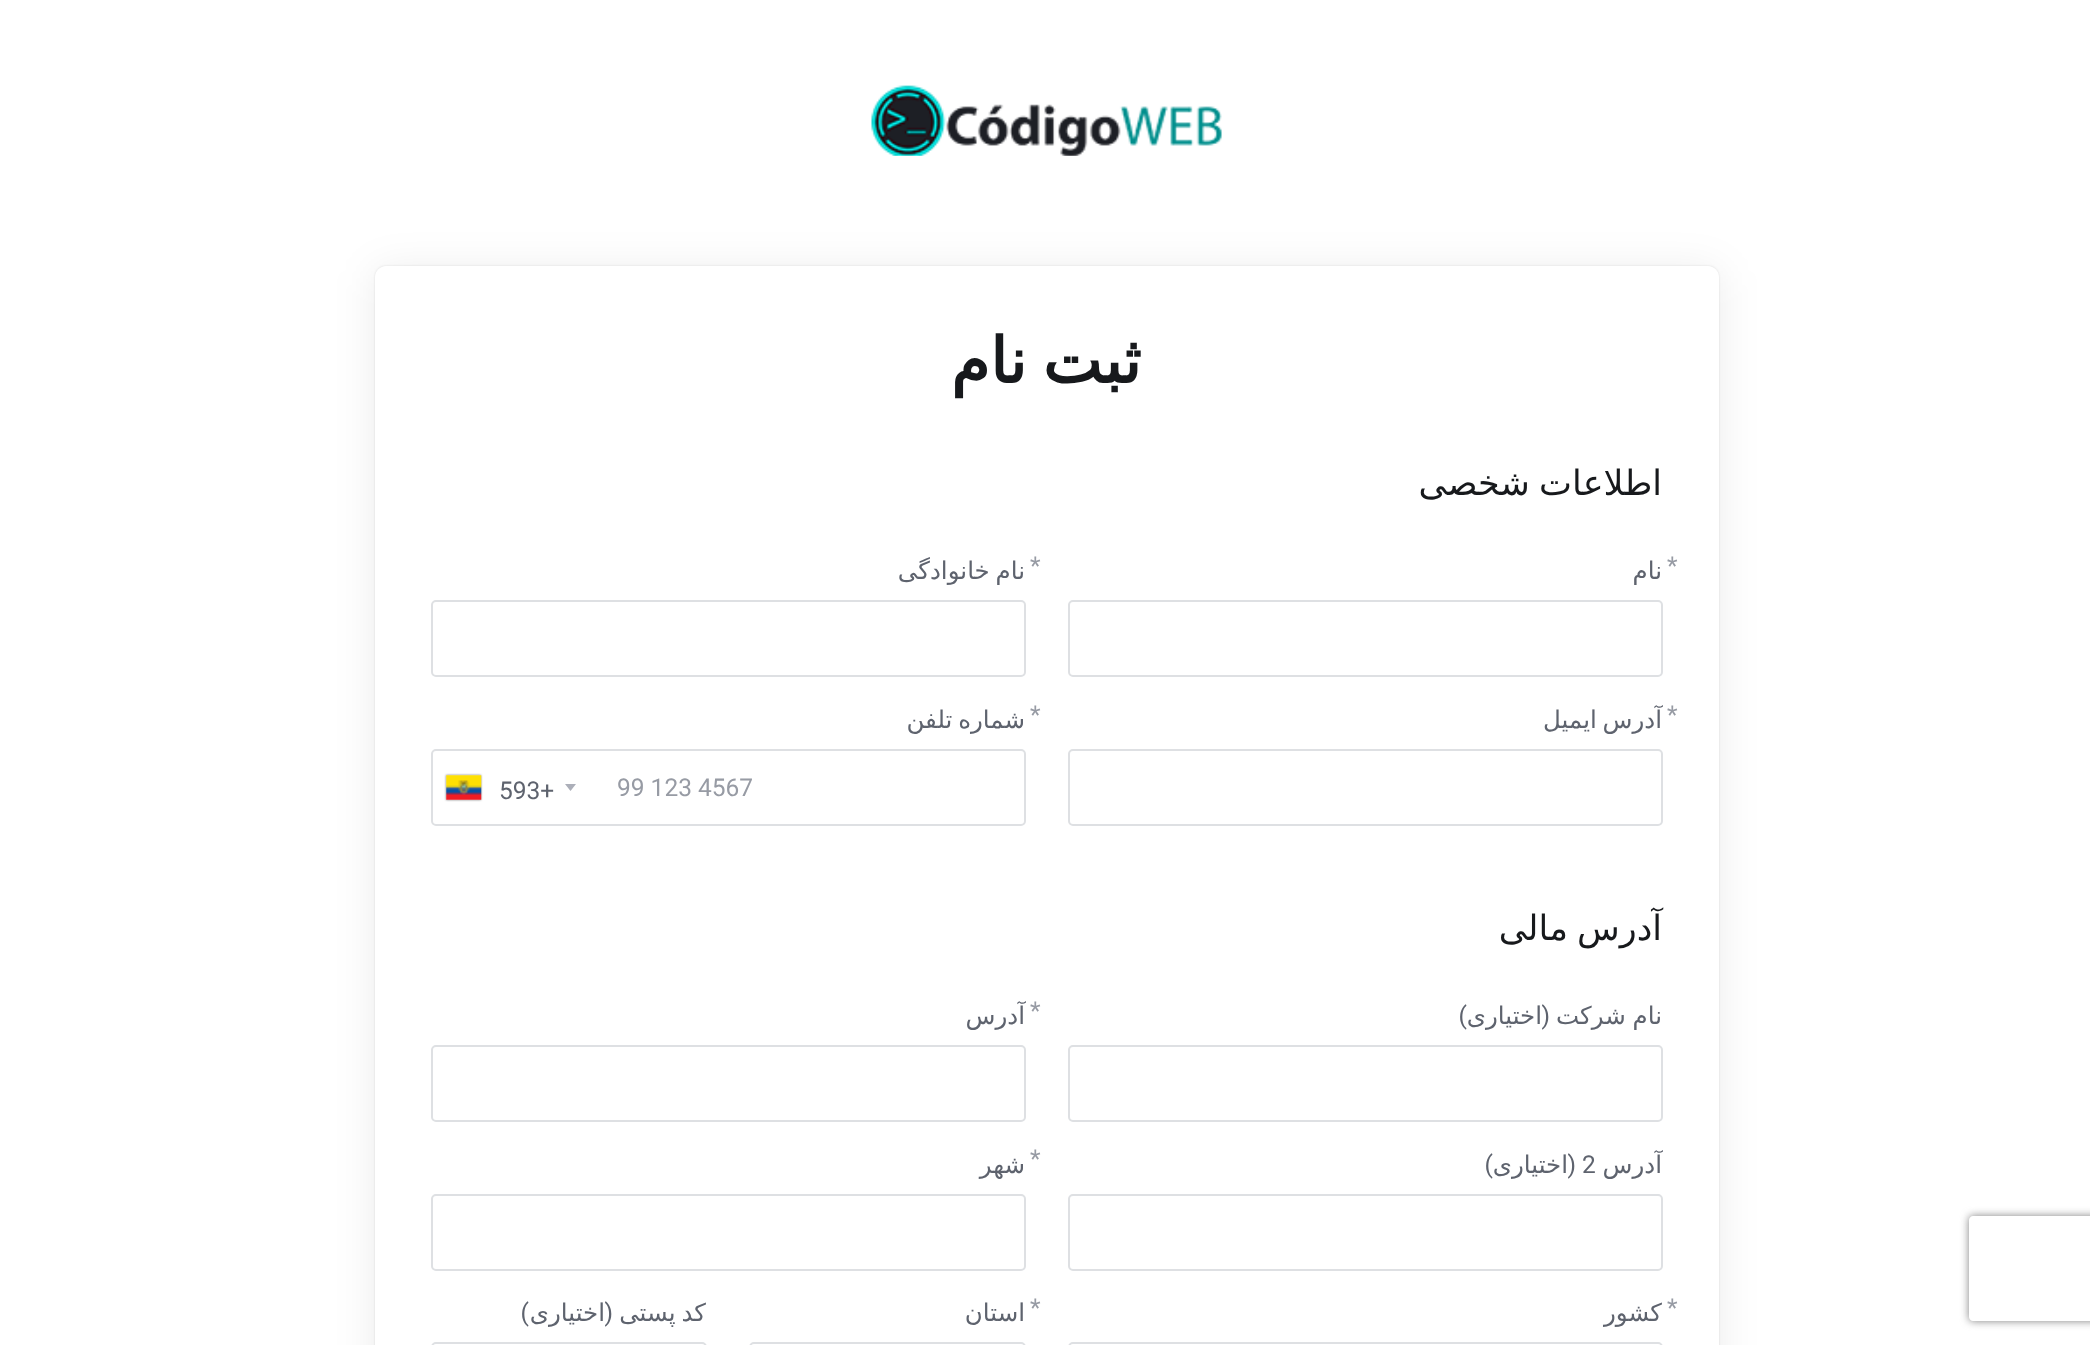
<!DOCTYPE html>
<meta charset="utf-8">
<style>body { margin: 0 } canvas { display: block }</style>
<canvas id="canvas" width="2090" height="1345"></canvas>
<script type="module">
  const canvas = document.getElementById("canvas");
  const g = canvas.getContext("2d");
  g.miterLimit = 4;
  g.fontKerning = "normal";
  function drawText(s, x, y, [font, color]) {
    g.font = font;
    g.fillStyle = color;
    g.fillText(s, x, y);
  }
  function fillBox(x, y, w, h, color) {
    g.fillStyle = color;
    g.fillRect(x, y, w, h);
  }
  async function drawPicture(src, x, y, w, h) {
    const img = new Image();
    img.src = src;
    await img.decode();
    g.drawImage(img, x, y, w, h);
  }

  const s1 = ["bold 63px DejaVu Sans", "#17191C"];
  const s2 = ["35px DejaVu Sans", "#17191C"];
  const s3 = ["24.5px Roboto", "#979BA4"];
  const s4 = ["24.5px DejaVu Sans", "#5E636E"];
  const s5 = ["24.5px Roboto", "#5E636E"];

  fillBox(0, 0, 2090, 1345, "#FFFFFF");
  await drawPicture("pic1.png", 871, 85, 351, 71);
  g.fillStyle = "rgba(0, 0, 0, 0.08)";
  g.filter = "blur(21px)";
  g.beginPath();
  g.roundRect(375, 270, 1344, 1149, 11);
  g.fill();
  g.filter = "none";
  g.fillStyle = "rgba(0, 0, 0, 0.1)";
  g.filter = "blur(1px)";
  g.beginPath();
  g.roundRect(375, 266, 1344, 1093, 11);
  g.fill();
  g.filter = "none";
  g.fillStyle = "#FFFFFF";
  g.beginPath();
  g.moveTo(386, 266);
  g.lineTo(1708, 266);
  g.bezierCurveTo(1714, 266, 1719, 271, 1719, 277);
  g.lineTo(1719, 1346);
  g.lineTo(375, 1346);
  g.lineTo(375, 277);
  g.bezierCurveTo(375, 271, 380, 266, 386, 266);
  g.closePath();
  g.fill();
  g.wordSpacing = "-4px";
  g.direction = "rtl";
  drawText("ثبت نام", 1141, 383, s1);
  g.save();
  g.beginPath();
  g.moveTo(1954, 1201);
  g.lineTo(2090, 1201);
  g.lineTo(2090, 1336);
  g.lineTo(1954, 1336);
  g.closePath();
  g.moveTo(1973, 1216);
  g.lineTo(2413, 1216);
  g.bezierCurveTo(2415, 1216, 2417, 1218, 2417, 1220);
  g.lineTo(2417, 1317);
  g.bezierCurveTo(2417, 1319, 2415, 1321, 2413, 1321);
  g.lineTo(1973, 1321);
  g.bezierCurveTo(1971, 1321, 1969, 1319, 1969, 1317);
  g.lineTo(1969, 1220);
  g.bezierCurveTo(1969, 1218, 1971, 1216, 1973, 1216);
  g.closePath();
  g.clip("evenodd");
  g.fillStyle = "#808080";
  g.filter = "blur(4.5px)";
  g.beginPath();
  g.roundRect(1969, 1216, 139, 105, 4);
  g.fill();
  g.filter = "none";
  g.restore();
  g.wordSpacing = "-2px";
  drawText("اطلاعات شخصی", 1662, 495, s2);
  g.wordSpacing = "0px";
  g.direction = "ltr";
  drawText("*", 1667, 574, s3);
  g.direction = "rtl";
  drawText("نام", 1662, 579, s4);
  g.beginPath();
  g.roundRect(1069, 601, 593, 75, 4);
  g.strokeStyle = "#DEE0E3";
  g.lineWidth = 2;
  g.stroke();
  g.direction = "ltr";
  drawText("*", 1030, 574, s3);
  g.wordSpacing = "-2px";
  g.direction = "rtl";
  drawText("نام خانوادگی", 1025, 579, s4);
  g.beginPath();
  g.roundRect(432, 601, 593, 75, 4);
  g.stroke();
  g.wordSpacing = "0px";
  g.direction = "ltr";
  drawText("*", 1667, 723, s3);
  g.wordSpacing = "-2px";
  g.direction = "rtl";
  drawText("آدرس ایمیل", 1662, 728, s4);
  g.beginPath();
  g.roundRect(1069, 750, 593, 75, 4);
  g.stroke();
  g.wordSpacing = "0px";
  g.direction = "ltr";
  drawText("*", 1030, 723, s3);
  g.wordSpacing = "-2px";
  g.direction = "rtl";
  drawText("شماره تلفن", 1025, 728, s4);
  g.beginPath();
  g.roundRect(432, 750, 593, 75, 4);
  g.stroke();
  g.wordSpacing = "0px";
  g.direction = "ltr";
  drawText("99 123 4567", 617, 796, s3);
  g.fillStyle = "#ACAFB9";
  g.beginPath();
  g.moveTo(565, 784);
  g.lineTo(576, 784);
  g.lineTo(570.5, 791);
  g.closePath();
  g.fill();
  drawText("593+", 499, 799, s5);
  g.fillStyle = "#888888";
  g.filter = "blur(1px)";
  g.beginPath();
  g.rect(446, 775, 35, 25);
  g.fill();
  g.filter = "none";
  fillBox(446, 775, 35, 25, "#DBDBDB");
  await drawPicture("pic2.png", 446, 775, 36, 25);
  g.wordSpacing = "-2px";
  g.direction = "rtl";
  drawText("آدرس مالی", 1662, 940, s2);
  g.wordSpacing = "-1px";
  drawText("نام شرکت", 1662, 1024, s4);
  g.wordSpacing = "0px";
  drawText("(", 1550, 1024, s5);
  drawText("اختیاری", 1542, 1024, s4);
  drawText(")", 1467, 1024, s5);
  g.beginPath();
  g.roundRect(1069, 1046, 593, 75, 4);
  g.stroke();
  g.direction = "ltr";
  drawText("*", 1030, 1019, s3);
  g.direction = "rtl";
  drawText("آدرس", 1025, 1024, s4);
  g.beginPath();
  g.roundRect(432, 1046, 593, 75, 4);
  g.stroke();
  drawText("آدرس", 1662, 1173, s4);
  g.direction = "ltr";
  drawText("2", 1582, 1173, s5);
  g.direction = "rtl";
  drawText("(", 1576, 1173, s5);
  drawText("اختیاری", 1568, 1173, s4);
  drawText(")", 1493, 1173, s5);
  g.beginPath();
  g.roundRect(1069, 1195, 593, 75, 4);
  g.stroke();
  g.direction = "ltr";
  drawText("*", 1030, 1167, s3);
  g.direction = "rtl";
  drawText("شهر", 1025, 1173, s4);
  g.beginPath();
  g.roundRect(432, 1195, 593, 75, 4);
  g.stroke();
  g.direction = "ltr";
  drawText("*", 1667, 1316, s3);
  g.direction = "rtl";
  drawText("کشور", 1662, 1321, s4);
  g.beginPath();
  g.roundRect(1069, 1343, 593, 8, 4);
  g.stroke();
  g.direction = "ltr";
  drawText("*", 1030, 1316, s3);
  g.direction = "rtl";
  drawText("استان", 1025, 1321, s4);
  g.beginPath();
  g.roundRect(750, 1343, 275, 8, 4);
  g.stroke();
  g.wordSpacing = "-2px";
  drawText("کد پستی", 706, 1321, s4);
  g.wordSpacing = "0px";
  drawText("(", 613, 1321, s5);
  drawText("اختیاری", 605, 1321, s4);
  drawText(")", 529, 1321, s5);
  g.beginPath();
  g.roundRect(432, 1343, 274, 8, 4);
  g.stroke();
</script>
